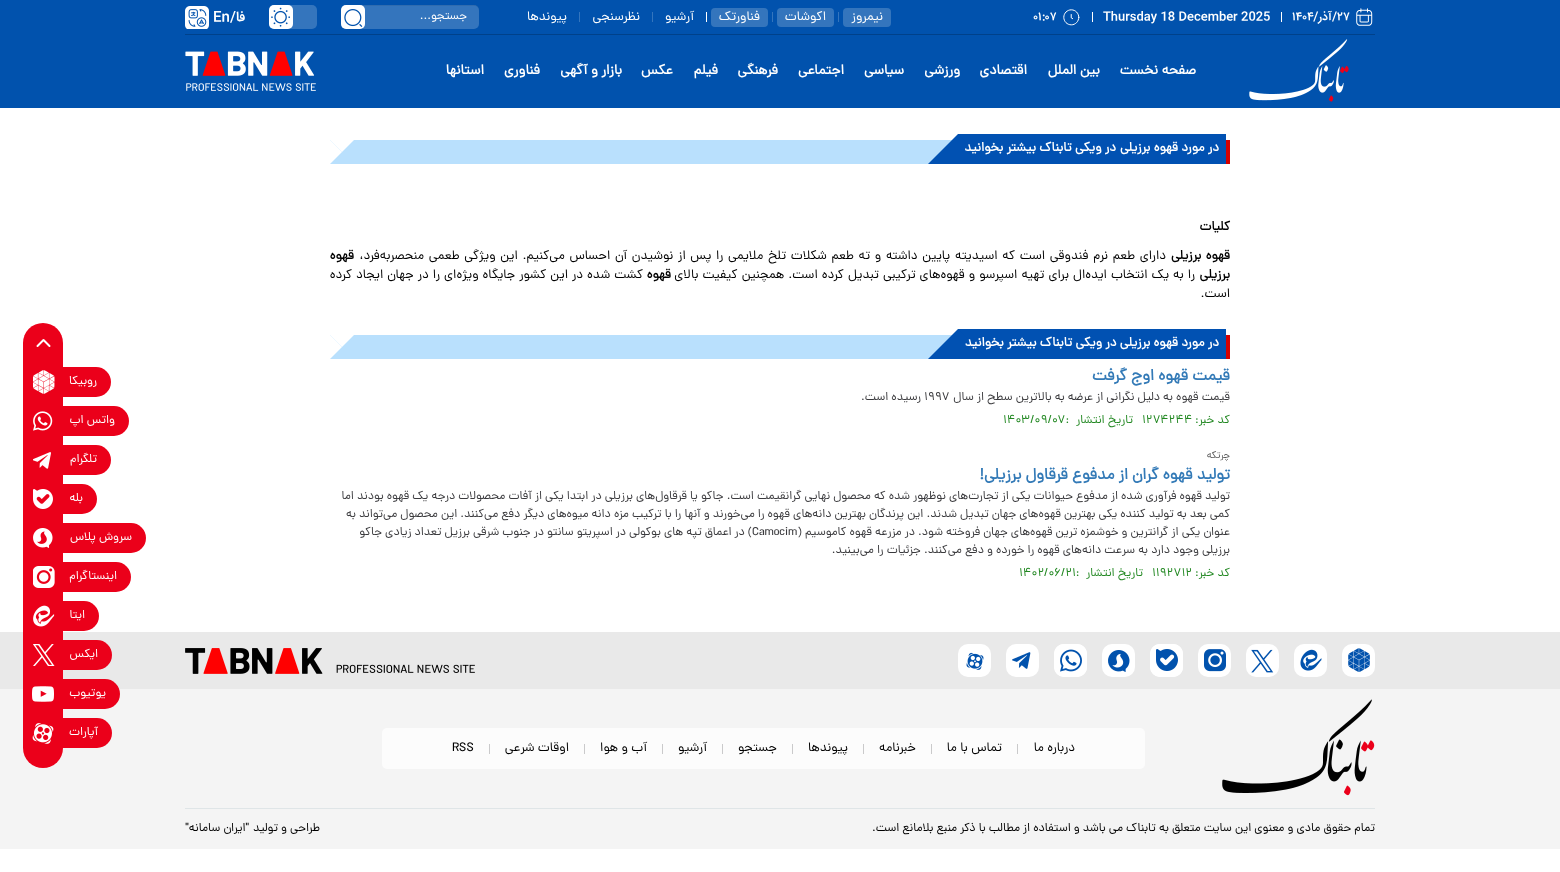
<!DOCTYPE html>
<meta charset="utf-8">
<style>body { margin: 0 } canvas { display: block }</style>
<canvas id="canvas" width="1560" height="872"></canvas>
<script type="module">
  const canvas = document.getElementById("canvas");
  const g = canvas.getContext("2d");
  g.miterLimit = 4;
  g.fontKerning = "normal";
  function drawText(s, x, y, [font, color]) {
    g.font = font;
    g.fillStyle = color;
    g.fillText(s, x, y);
  }
  function fillBox(x, y, w, h, color) {
    g.fillStyle = color;
    g.fillRect(x, y, w, h);
  }
  function fillRounded(x, y, w, h, r, color) {
    g.fillStyle = color;
    g.beginPath();
    g.roundRect(x, y, w, h, r);
    g.fill();
  }
  async function drawPicture(src, x, y, w, h) {
    const img = new Image();
    img.src = src;
    await img.decode();
    g.drawImage(img, x, y, w, h);
  }

  const s1 = ["500 12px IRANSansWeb", "#FFFFFF"];
  const s2 = ["13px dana", "#FFFFFF"];
  const s3 = ["12px dana", "#FFFFFF"];
  const s4 = ["500 14px IRANSansWeb", "#FFFFFF"];
  const s5 = ["bold 14px dana", "#FFFFFF"];
  const s6 = ["bold 13px dana", "#FFFFFF"];
  const s7 = ["bold 13px dana", "#000000"];
  const s8 = ["13px dana", "#000000"];
  const s9 = ["bold 16px dana", "#337AB7"];
  const s10 = ["12px dana", "#3A3A3D"];
  const s11 = ["12px dana", "#228822"];
  const s12 = ["10px dana", "#595959"];
  const s13 = ["12px dana", "#000000"];

  fillBox(0, 0, 1560, 872, "#FFFFFF");
  fillBox(0, 0, 1560, 108, "#0152AD");
  fillBox(185, 34, 1190, 1, "#00418A");
  await drawPicture("pic1.png", 1356, 8, 17, 18);
  drawText("۲۷", 1337, 20, s1);
  g.direction = "rtl";
  drawText("/آذر/", 1337, 20, s1);
  g.direction = "ltr";
  drawText("۱۴۰۴", 1292, 20, s1);
  fillBox(1281, 12, 1, 10, "#FFFFFF");
  drawText("Thursday 18 December 2025", 1103, 20, s1);
  fillBox(1092, 12, 1, 10, "#FFFFFF");
  await drawPicture("pic2.png", 1063, 9, 17, 17);
  drawText("۰۱:۰۷", 1033, 20, s1);
  fillRounded(843, 8, 48, 19, 4, "#3475BD");
  g.direction = "rtl";
  drawText("نیمروز", 883, 20, s2);
  fillBox(838, 12, 1, 10, "#3475BD");
  fillRounded(777, 8, 57, 19, 4, "#3475BD");
  drawText("اکوشات", 826, 20, s2);
  fillBox(772, 12, 1, 10, "#3475BD");
  fillRounded(711, 8, 57, 19, 4, "#3475BD");
  drawText("فناورتک", 760, 20, s2);
  fillBox(706, 12, 1, 10, "#FFFFFF");
  drawText("آرشیو", 694, 20, s2);
  fillBox(652, 12, 1, 10, "#3475BD");
  drawText("نظرسنجی", 640, 20, s2);
  fillBox(579, 12, 1, 10, "#3475BD");
  drawText("پیوندها", 567, 20, s2);
  fillRounded(341, 5, 138, 24, 5, "#3475BD");
  g.fillStyle = "rgba(0, 0, 0, 0.07)";
  g.beginPath();
  g.moveTo(346, 6);
  g.lineTo(474, 6);
  g.bezierCurveTo(477, 6, 479, 8, 479, 11);
  g.lineTo(479, 10);
  g.bezierCurveTo(479, 7, 477, 5, 474, 5);
  g.lineTo(346, 5);
  g.bezierCurveTo(343, 5, 341, 7, 341, 10);
  g.lineTo(341, 11);
  g.bezierCurveTo(341, 8, 343, 6, 346, 6);
  g.closePath();
  g.fill();
  drawText("جستجو...", 467, 19, s3);
  fillRounded(341, 5, 24, 24, 5, "#FFFFFF");
  await drawPicture("pic3.png", 344, 9, 19, 18);
  fillRounded(269, 5, 48, 24, 5, "#3475BD");
  fillRounded(269, 5, 24, 24, 5, "#FFFFFF");
  await drawPicture("pic4.png", 271, 7, 19, 20);
  drawText("فا", 245, 21, s4);
  g.direction = "ltr";
  drawText("En/", 213, 21, s4);
  await drawPicture("pic5.png", 185, 6, 24, 23);
  await drawPicture("pic6.png", 1249, 39, 100, 63);
  g.direction = "rtl";
  drawText("صفحه نخست", 1196, 74, s5);
  drawText("بین الملل", 1100, 74, s5);
  drawText("اقتصادی", 1027, 74, s5);
  drawText("ورزشی", 960, 74, s5);
  drawText("سیاسی", 904, 74, s5);
  drawText("اجتماعی", 844, 74, s5);
  drawText("فرهنگی", 778, 74, s5);
  drawText("فیلم", 718, 74, s5);
  drawText("عکس", 673, 74, s5);
  drawText("بازار و آگهی", 622, 74, s5);
  drawText("فناوری", 540, 74, s5);
  drawText("استانها", 484, 74, s5);
  await drawPicture("pic7.png", 185, 51, 131, 40);
  fillBox(0, 632, 1560, 57, "#E9E9E9");
  fillBox(0, 689, 1560, 160, "#F4F4F4");
  fillRounded(23, 323, 40, 445, 20, "#EB001A");
  g.beginPath();
  g.moveTo(49.5, 346);
  g.lineTo(43.5, 340);
  g.lineTo(37.5, 346);
  g.strokeStyle = "#FFFFFF";
  g.lineWidth = 2;
  g.lineCap = "round";
  g.lineJoin = "round";
  g.stroke();
  await drawPicture("pic8.png", 33, 370, 22, 24);
  g.beginPath();
  g.roundRect(56, 367, 55, 30, [0, 15, 15, 0]);
  g.fill();
  drawText("روبیکا", 97, 384, s3);
  await drawPicture("pic9.png", 33, 411, 20, 20);
  g.fillStyle = "#EB001A";
  g.beginPath();
  g.roundRect(56, 406, 73, 30, [0, 15, 15, 0]);
  g.fill();
  drawText("واتس اپ", 115, 423, s3);
  await drawPicture("pic10.png", 33, 452, 18, 17);
  g.fillStyle = "#EB001A";
  g.beginPath();
  g.roundRect(56, 445, 55, 30, [0, 15, 15, 0]);
  g.fill();
  drawText("تلگرام", 97, 462, s3);
  await drawPicture("pic11.png", 33, 489, 20, 20);
  g.fillStyle = "#EB001A";
  g.beginPath();
  g.roundRect(56, 484, 41, 30, [0, 15, 15, 0]);
  g.fill();
  drawText("بله", 83, 501, s3);
  await drawPicture("pic12.png", 33, 528, 20, 20);
  g.fillStyle = "#EB001A";
  g.beginPath();
  g.roundRect(56, 523, 90, 30, [0, 15, 15, 0]);
  g.fill();
  drawText("سروش پلاس", 132, 540, s3);
  await drawPicture("pic13.png", 33, 566, 22, 22);
  g.fillStyle = "#EB001A";
  g.beginPath();
  g.roundRect(56, 562, 75, 30, [0, 15, 15, 0]);
  g.fill();
  drawText("اینستاگرام", 117, 579, s3);
  await drawPicture("pic14.png", 33, 605, 22, 22);
  g.fillStyle = "#EB001A";
  g.beginPath();
  g.roundRect(56, 601, 43, 30, [0, 15, 15, 0]);
  g.fill();
  drawText("ایتا", 85, 618, s3);
  await drawPicture("pic15.png", 33, 644, 22, 22);
  g.fillStyle = "#EB001A";
  g.beginPath();
  g.roundRect(56, 640, 56, 30, [0, 15, 15, 0]);
  g.fill();
  drawText("ایکس", 98, 657, s3);
  await drawPicture("pic16.png", 32, 686, 22, 16);
  g.fillStyle = "#EB001A";
  g.beginPath();
  g.roundRect(56, 679, 64, 30, [0, 15, 15, 0]);
  g.fill();
  drawText("یوتیوب", 106, 696, s3);
  await drawPicture("pic17.png", 32, 723, 22, 21);
  g.fillStyle = "#EB001A";
  g.beginPath();
  g.roundRect(56, 718, 56, 30, [0, 15, 15, 0]);
  g.fill();
  drawText("آپارات", 98, 735, s3);
  fillBox(330, 140, 622, 24, "#B9E0FD");
  fillBox(1226, 140, 4, 24, "#D40000");
  fillBox(958, 134, 268, 30, "#0151B2");
  drawText("در مورد", 1219, 151, s6);
  drawText("قهوه برزیلی", 1178, 151, s6);
  g.fillStyle = "#0151B2";
  g.beginPath();
  g.moveTo(988, 164);
  g.lineTo(928, 164);
  g.lineTo(958, 134);
  g.closePath();
  g.fill();
  drawText("در ویکی تابناک بیشتر بخوانید", 1116, 151, s6);
  g.beginPath();
  g.moveTo(330, 140);
  g.lineTo(354, 140);
  g.lineTo(342, 152);
  g.closePath();
  g.fill();
  g.beginPath();
  g.moveTo(330, 164);
  g.lineTo(330, 140);
  g.lineTo(342, 152);
  g.closePath();
  g.fill();
  drawText("کلیات", 1230, 230, s7);
  g.wordSpacing = "1px";
  drawText("قهوه برزیلی", 1230, 259, s7);
  g.wordSpacing = "1.35px";
  drawText("دارای طعم نرم فندوقی است که اسیدیته پایین داشته و ته طعم شکلات تلخ ملایمی را پس از نوشیدن آن احساس می‌کنیم. این ویژگی طعمی منحصربه‌فرد،", 1166, 259, s8);
  g.wordSpacing = "0px";
  drawText("قهوه", 354, 259, s7);
  drawText("برزیلی", 1230, 278, s7);
  g.wordSpacing = "0.7px";
  drawText("را به یک انتخاب ایده‌ال برای تهیه اسپرسو و قهوه‌های ترکیبی تبدیل کرده است. همچنین کیفیت بالای", 1195, 278, s8);
  g.wordSpacing = "0px";
  drawText("قهوه", 671, 278, s7);
  g.wordSpacing = "0.7px";
  drawText("کشت شده در این کشور جایگاه ویژه‌ای را در جهان ایجاد کرده", 643, 278, s8);
  g.wordSpacing = "0px";
  drawText("است.", 1230, 297, s8);
  fillBox(330, 335, 622, 24, "#B9E0FD");
  fillBox(1226, 335, 4, 24, "#D40000");
  fillBox(958, 329, 268, 30, "#0151B2");
  g.beginPath();
  g.moveTo(988, 359);
  g.lineTo(928, 359);
  g.lineTo(958, 329);
  g.closePath();
  g.fill();
  drawText("در مورد قهوه برزیلی در ویکی تابناک بیشتر بخوانید", 1219, 346, s6);
  g.beginPath();
  g.moveTo(330, 335);
  g.lineTo(354, 335);
  g.lineTo(342, 347);
  g.closePath();
  g.fill();
  g.beginPath();
  g.moveTo(330, 359);
  g.lineTo(330, 335);
  g.lineTo(342, 347);
  g.closePath();
  g.fill();
  drawText("قیمت قهوه اوج گرفت", 1230, 380, s9);
  drawText("قیمت قهوه به دلیل نگرانی از عرضه به بالاترین سطح از سال", 1230, 400, s10);
  g.direction = "ltr";
  drawText("۱۹۹۷", 924, 400, s10);
  g.direction = "rtl";
  drawText("رسیده است.", 921, 400, s10);
  drawText("کد خبر:", 1230, 423, s11);
  g.direction = "ltr";
  drawText("۱۲۷۴۲۴۴", 1142, 423, s11);
  g.direction = "rtl";
  drawText("تاریخ انتشار", 1133, 423, s11);
  g.direction = "ltr";
  drawText("۱۴۰۳/۰۹/۰۷:", 1003, 423, s11);
  g.direction = "rtl";
  drawText("چرتکه", 1230, 458, s12);
  drawText("تولید قهوه گران از مدفوع قرقاول‌ برزیلی!", 1230, 479, s9);
  drawText("تولید قهوه فرآوری شده از مدفوع حیوانات یکی از تجارت‌های نوظهور شده که محصول نهایی گرانقیمت است. جاکو یا قرقاول‌های برزیلی در ابتدا یکی از آفات محصولات درجه یک قهوه بودند اما", 1230, 499, s10);
  drawText("کمی بعد به تولید کننده یکی بهترین قهوه‌های جهان تبدیل شدند. این پرندگان بهترین دانه‌های قهوه را می‌خورند و آنها را با ترکیب مزه دانه میوه‌های دیگر دفع می‌کنند. این محصول می‌تواند به", 1230, 517, s10);
  drawText("عنوان یکی از گرانترین و خوشمزه ترین قهوه‌های جهان فروخته شود. در مزرعه قهوه کاموسیم (", 1230, 535, s10);
  g.direction = "ltr";
  drawText("Camocim", 752, 535, s10);
  g.direction = "rtl";
  drawText(") در اعماق تپه های بوکولی در اسپریتو سانتو در جنوب شرقی برزیل تعداد زیادی جاکو", 752, 535, s10);
  drawText("برزیلی وجود دارد به سرعت دانه‌های قهوه را خورده و دفع می‌کنند. جزئیات را می‌بینید.", 1230, 553, s10);
  drawText("کد خبر:", 1230, 576, s11);
  g.direction = "ltr";
  drawText("۱۱۹۲۷۱۲", 1152, 576, s11);
  g.direction = "rtl";
  drawText("تاریخ انتشار", 1143, 576, s11);
  g.direction = "ltr";
  drawText("۱۴۰۲/۰۶/۲۱:", 1019, 576, s11);
  fillRounded(1342, 644, 33, 33, 10, "#FFFFFF");
  await drawPicture("pic18.png", 1348, 648, 22, 24);
  fillRounded(1294, 644, 33, 33, 10, "#FFFFFF");
  await drawPicture("pic19.png", 1300, 649, 22, 22);
  fillRounded(1246, 644, 33, 33, 10, "#FFFFFF");
  await drawPicture("pic20.png", 1251, 649, 23, 24);
  fillRounded(1198, 644, 33, 33, 10, "#FFFFFF");
  await drawPicture("pic21.png", 1204, 649, 22, 23);
  fillRounded(1150, 644, 33, 33, 10, "#FFFFFF");
  await drawPicture("pic22.png", 1150, 644, 33, 33);
  fillRounded(1102, 644, 33, 33, 10, "#FFFFFF");
  await drawPicture("pic23.png", 1108, 650, 22, 22);
  fillRounded(1054, 644, 33, 33, 10, "#FFFFFF");
  await drawPicture("pic24.png", 1054, 644, 33, 33);
  fillRounded(1006, 644, 33, 33, 10, "#FFFFFF");
  await drawPicture("pic25.png", 1012, 652, 19, 17);
  fillRounded(958, 644, 33, 33, 10, "#FFFFFF");
  await drawPicture("pic26.png", 966, 652, 18, 18);
  await drawPicture("pic27.png", 185, 648, 290, 26);
  await drawPicture("pic28.png", 1222, 699, 153, 97);
  fillRounded(382, 728, 763, 41, 5, "#FCFCFC");
  g.direction = "rtl";
  drawText("درباره ما", 1075, 751, s8);
  fillBox(1017, 744, 1, 10, "#CACACB");
  drawText("تماس با ما", 1002, 751, s8);
  fillBox(931, 744, 1, 10, "#CACACB");
  drawText("خبرنامه", 916, 751, s8);
  fillBox(863, 744, 1, 10, "#CACACB");
  drawText("پیوندها", 848, 751, s8);
  fillBox(792, 744, 1, 10, "#CACACB");
  drawText("جستجو", 777, 751, s8);
  fillBox(722, 744, 1, 10, "#CACACB");
  drawText("آرشیو", 707, 751, s8);
  fillBox(662, 744, 1, 10, "#CACACB");
  drawText("آب و", 647, 751, s8);
  drawText("هوا", 618, 751, s8);
  fillBox(584, 744, 1, 10, "#CACACB");
  drawText("اوقات شرعی", 569, 751, s8);
  fillBox(489, 744, 1, 10, "#CACACB");
  g.direction = "ltr";
  drawText("RSS", 452, 751, s8);
  fillBox(185, 808, 1190, 1, "#DFE5E7");
  g.direction = "rtl";
  drawText("تمام حقوق مادی و معنوی این سایت متعلق به تابناک می باشد و استفاده از مطالب با ذکر منبع بلامانع است.", 1375, 831, s13);
  drawText("طراحی و تولید", 320, 831, s13);
  drawText("\"ایران سامانه\"", 249, 831, s13);
</script>
